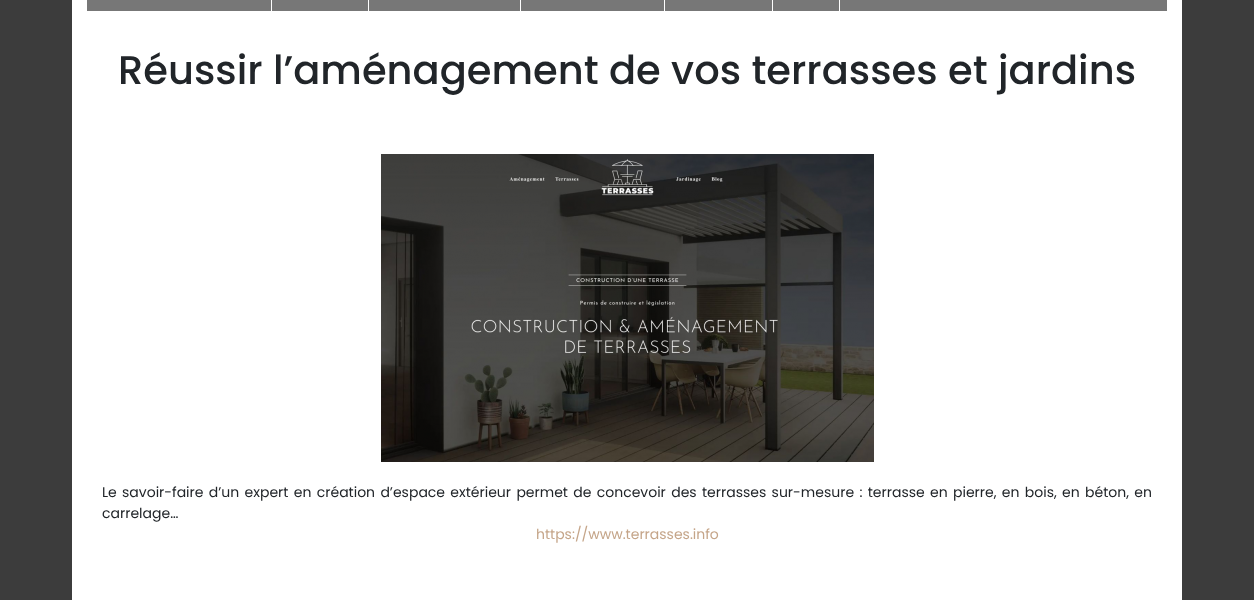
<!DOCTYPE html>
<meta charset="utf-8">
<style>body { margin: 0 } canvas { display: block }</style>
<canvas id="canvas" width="1254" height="600"></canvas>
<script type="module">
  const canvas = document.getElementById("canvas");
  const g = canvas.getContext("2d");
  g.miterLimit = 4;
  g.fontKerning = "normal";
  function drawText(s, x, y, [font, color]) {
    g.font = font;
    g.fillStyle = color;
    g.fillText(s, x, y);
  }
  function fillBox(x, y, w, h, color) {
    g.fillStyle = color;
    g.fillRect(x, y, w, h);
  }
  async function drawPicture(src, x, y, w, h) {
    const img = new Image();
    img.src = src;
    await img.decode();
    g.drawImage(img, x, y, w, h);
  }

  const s1 = ["500 40px Poppins", "#212529"];
  const s2 = ["14px Poppins", "#212529"];
  const s3 = ["14px Poppins", "#C5A589"];

  fillBox(0, 0, 1254, 600, "#3C3C3C");
  fillBox(72, 0, 1110, 600, "#FFFFFF");
  fillBox(87, 0, 1080, 11, "#777777");
  fillBox(271, 0, 1, 11, "#FFFFFF");
  fillBox(368, 0, 1, 11, "#FFFFFF");
  fillBox(520, 0, 1, 11, "#FFFFFF");
  fillBox(664, 0, 1, 11, "#FFFFFF");
  fillBox(772, 0, 1, 11, "#FFFFFF");
  fillBox(839, 0, 1, 11, "#FFFFFF");
  drawText("Réussir l’aménagement de vos terrasses et jardins", 118, 84, s1);
  await drawPicture("pic1.png", 381, 154, 493, 308);
  g.wordSpacing = "1.6px";
  drawText("Le savoir-faire d’un expert en création d’espace extérieur permet de concevoir des terrasses sur-mesure : terrasse en pierre, en bois, en béton, en", 102, 497, s2);
  g.wordSpacing = "0px";
  drawText("carrelage…", 102, 518, s2);
  drawText("https://www.terrasses.info", 536, 539, s3);
</script>
